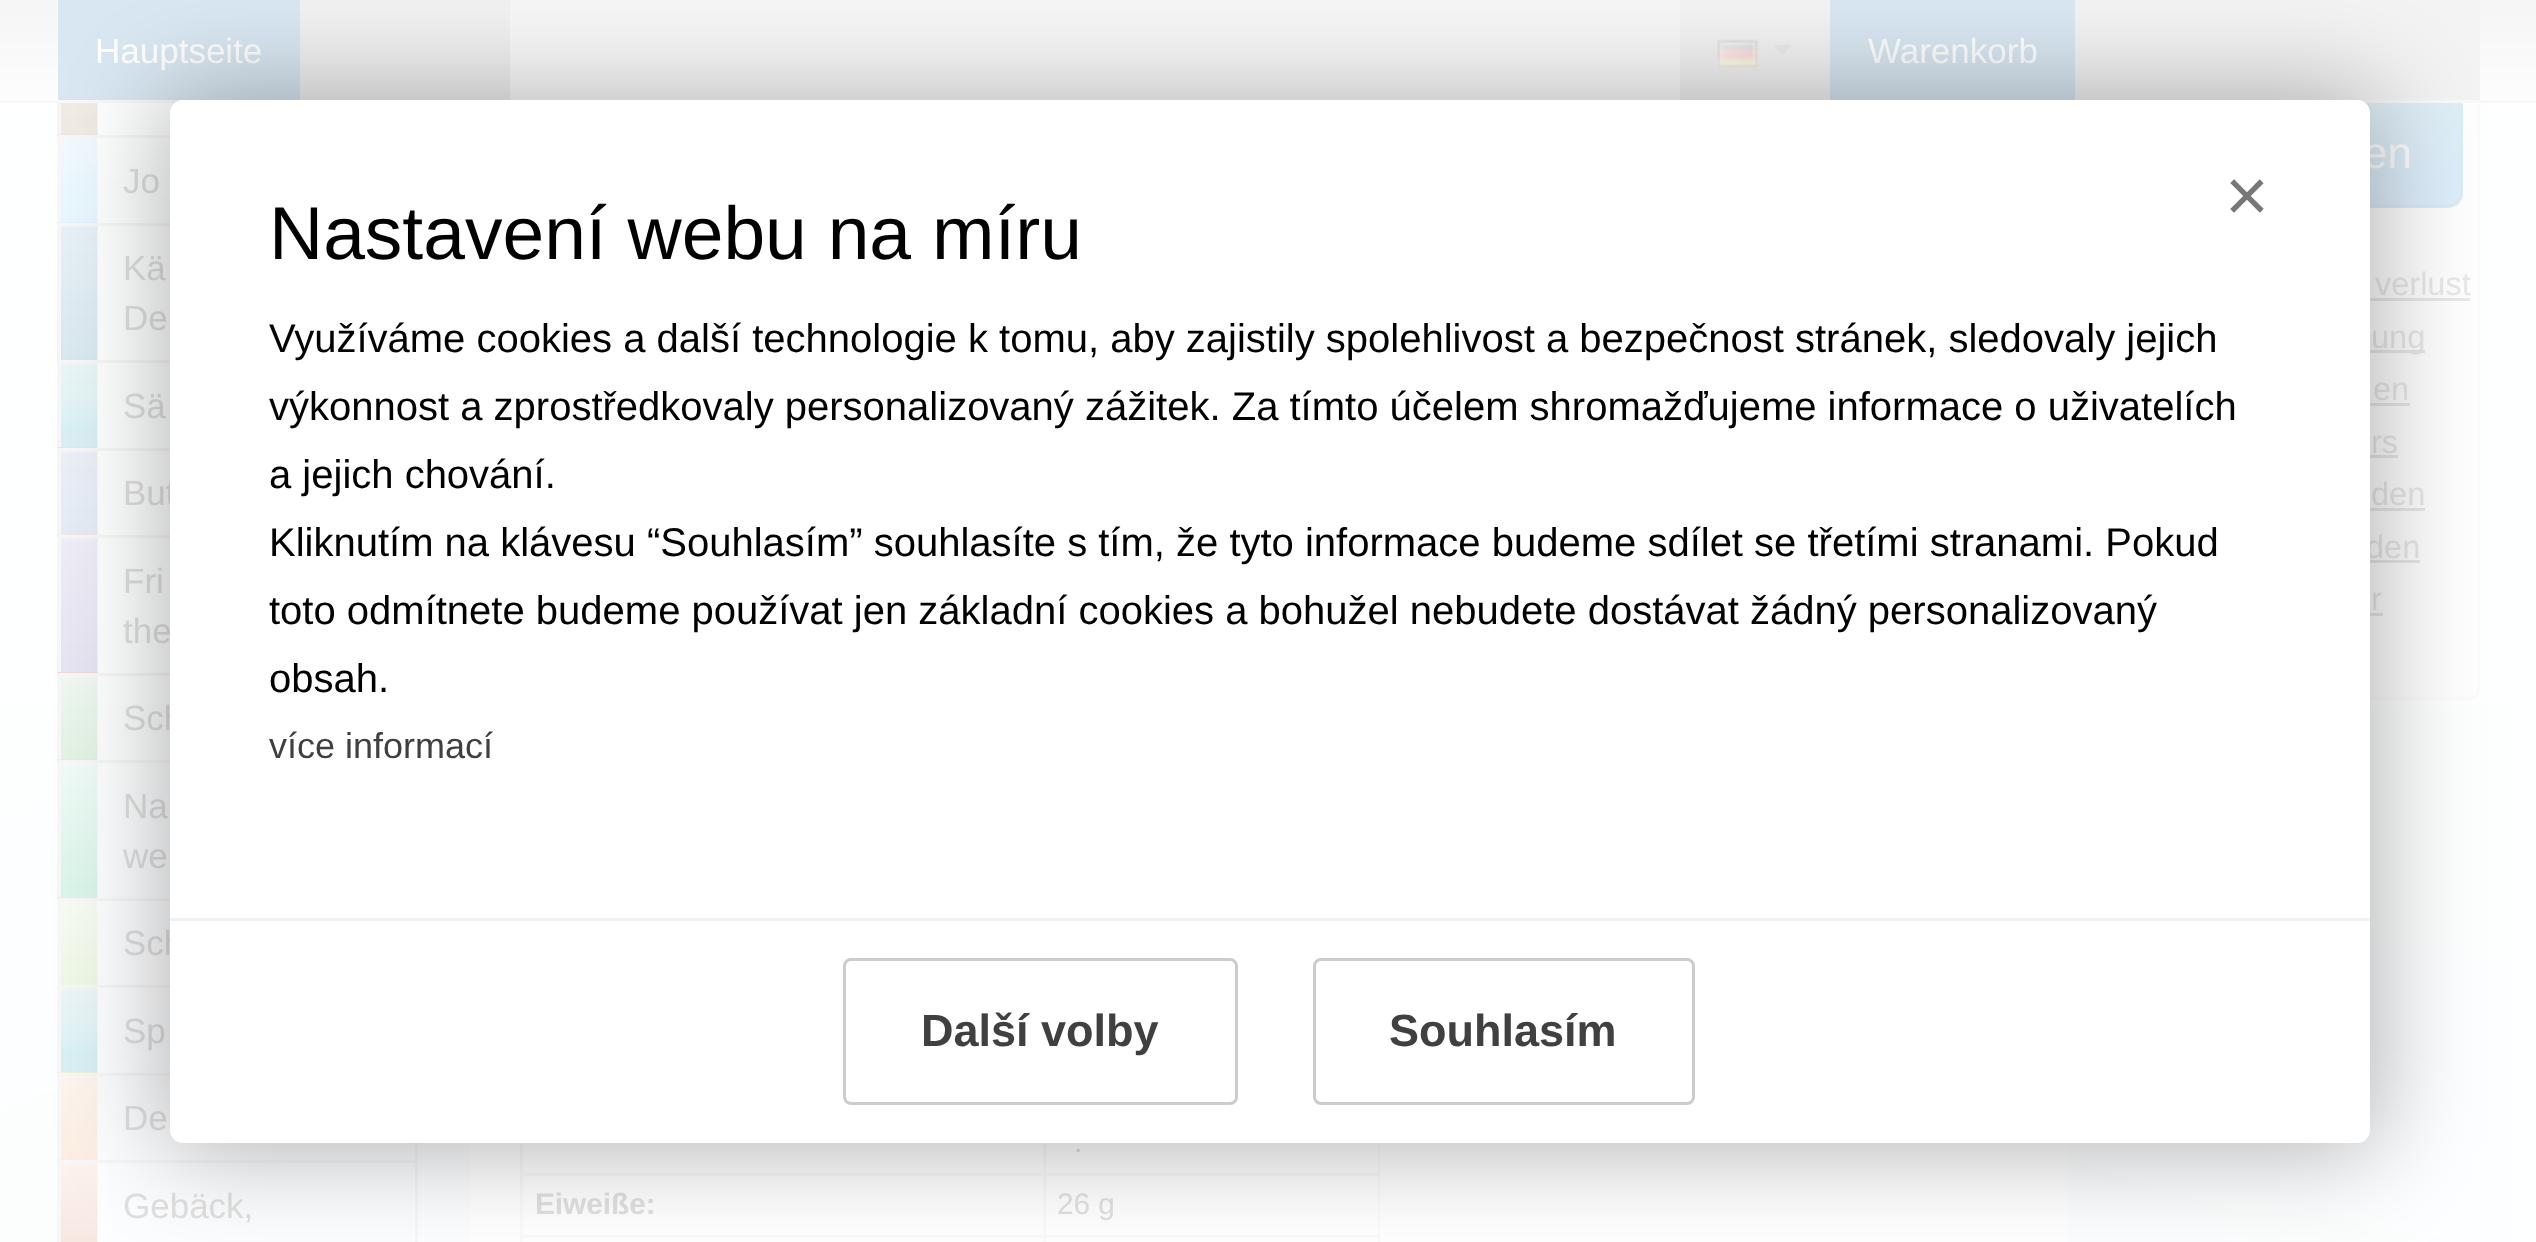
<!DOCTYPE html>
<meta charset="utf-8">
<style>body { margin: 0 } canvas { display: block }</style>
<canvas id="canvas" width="2536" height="1242"></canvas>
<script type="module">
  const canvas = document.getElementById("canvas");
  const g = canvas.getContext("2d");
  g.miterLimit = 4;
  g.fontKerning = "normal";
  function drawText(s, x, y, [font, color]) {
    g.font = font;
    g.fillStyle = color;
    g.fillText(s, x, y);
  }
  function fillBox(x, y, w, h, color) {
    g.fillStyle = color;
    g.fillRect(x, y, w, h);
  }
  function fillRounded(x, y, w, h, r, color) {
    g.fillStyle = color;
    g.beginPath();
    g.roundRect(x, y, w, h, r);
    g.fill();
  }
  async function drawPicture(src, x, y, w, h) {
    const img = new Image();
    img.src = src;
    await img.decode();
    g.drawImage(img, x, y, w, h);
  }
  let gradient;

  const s1 = ["35px Liberation Sans", "#FFFFFF"];
  const s2 = ["35px Liberation Sans", "#E0E0E0"];
  const s3 = ["29.75px Liberation Sans", "#E0E0E0"];
  const s4 = ["bold 29.75px Liberation Sans", "#E0E0E0"];
  const s5 = ["44px Liberation Sans", "#FFFFFF"];
  const s6 = ["32.5px Liberation Sans", "#E8E8E8"];
  const s7 = ["75px Liberation Sans", "#777777"];
  const s8 = ["75px Liberation Sans", "#000000"];
  const s9 = ["40px Liberation Sans", "#000000"];
  const s10 = ["36px Liberation Sans", "#404040"];
  const s11 = ["bold 45px Liberation Sans", "#404040"];

  fillBox(0, 0, 2536, 1242, "#FEFFFF");
  await drawPicture("pic1.png", 0, 706, 2510, 536);
  await drawPicture("pic16.png", 2370, 103, 110, 596);
  g.beginPath();
  g.roundRect(2121.5, -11.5, 357, 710, 8.5);
  g.strokeStyle = "#FBFBFB";
  g.lineWidth = 3;
  g.stroke();
  fillRounded(2170, 48, 293, 160, 15, "#DDEEFC");
  g.save();
  g.beginPath();
  g.roundRect(2170, 48, 293, 160, 15);
  g.clip();
  gradient = g.createLinearGradient(2316, 50, 2316, 205);
  gradient.addColorStop(0, "#E0EFF4");
  gradient.addColorStop(1, "#DDEEFC");
  g.fillStyle = gradient;
  g.fillRect(2365, 103, 98, 102);
  g.restore();
  g.beginPath();
  g.moveTo(2457, 202);
  g.bezierCurveTo(2454.5, 205, 2451, 206, 2447.5, 206);
  g.lineTo(2185, 206);
  g.bezierCurveTo(2181.5, 206, 2178, 205, 2175.5, 202);
  g.strokeStyle = "#DCE9F3";
  g.lineWidth = 2.5;
  g.stroke();
  g.beginPath();
  g.moveTo(2175.5, 202);
  g.bezierCurveTo(2172.5, 199.5, 2171, 196, 2171, 192.5);
  g.lineTo(2171, 62.5);
  g.bezierCurveTo(2171, 59, 2172.5, 55.5, 2175.5, 53);
  g.bezierCurveTo(2178, 50, 2181.5, 49, 2185, 49);
  g.lineTo(2447.5, 49);
  g.bezierCurveTo(2451, 49, 2454.5, 50, 2457, 53);
  g.bezierCurveTo(2460, 55.5, 2461, 59, 2461, 62.5);
  g.lineTo(2461, 192.5);
  g.bezierCurveTo(2461, 196, 2460, 199.5, 2457, 202);
  g.strokeStyle = "rgba(217, 217, 217, 0.1)";
  g.stroke();
  await drawPicture("pic2.png", 0, 0, 2536, 100);
  fillBox(0, 100, 2536, 3, "#F9F9F9");
  fillBox(58, 0, 242, 100, "#D9E7F2");
  drawText("Hauptseite", 95, 63, s1);
  fillBox(300, 0, 210, 100, "#F1F1F1");
  fillBox(1680, 0, 800, 100, "#F3F3F3");
  await drawPicture("pic3.png", 1717, 39, 42, 29);
  g.fillStyle = "#EBEBEB";
  g.beginPath();
  g.moveTo(1772.5, 45);
  g.lineTo(1792.5, 45);
  g.lineTo(1782.5, 55);
  g.closePath();
  g.fill();
  fillBox(1830, 0, 245, 100, "#D9E7F2");
  drawText("Warenkorb", 1868, 63, s1);
  await drawPicture("pic4.png", 57, 103, 41, 34);
  fillBox(58, 103, 3, 35, "#F7F7F7");
  await drawPicture("pic5.png", 57, 134, 41, 91);
  fillBox(60, 140, 31, 1, "rgba(255, 255, 255, 0.2)");
  fillBox(58, 135, 112, 3, "#F7F7F7");
  fillBox(58, 135, 3, 90, "#F7F7F7");
  drawText("Jo", 123, 193, s2);
  await drawPicture("pic6.png", 57, 222, 41, 140);
  fillBox(60, 226, 37, 2, "rgba(255, 255, 255, 0.2)");
  fillBox(58, 223, 112, 3, "#F7F7F7");
  fillBox(58, 223, 3, 140, "#F7F7F7");
  drawText("Kä", 123, 280, s2);
  drawText("De", 123, 330, s2);
  await drawPicture("pic7.png", 57, 362, 41, 88);
  fillBox(60, 363, 37, 3, "rgba(255, 255, 255, 0.2)");
  fillBox(58, 360, 112, 3, "#F7F7F7");
  fillBox(58, 360, 3, 90, "#F7F7F7");
  drawText("Sä", 123, 418, s2);
  await drawPicture("pic8.png", 57, 447, 41, 90);
  fillBox(60, 451, 37, 2, "rgba(255, 255, 255, 0.2)");
  fillBox(58, 448, 112, 3, "#F7F7F7");
  fillBox(58, 448, 3, 90, "#F7F7F7");
  drawText("But", 123, 505, s2);
  await drawPicture("pic9.png", 57, 534, 41, 141);
  fillBox(60, 538, 37, 3, "rgba(255, 255, 255, 0.2)");
  fillBox(58, 535, 112, 3, "#F7F7F7");
  fillBox(58, 535, 3, 140, "#F7F7F7");
  drawText("Fri", 123, 593, s2);
  drawText("the", 123, 643, s2);
  await drawPicture("pic10.png", 57, 672, 41, 90);
  fillBox(60, 676, 37, 2, "rgba(255, 255, 255, 0.2)");
  fillBox(58, 673, 112, 3, "#F7F7F7");
  fillBox(58, 673, 3, 90, "#F7F7F7");
  drawText("Sch", 123, 730, s2);
  await drawPicture("pic11.png", 57, 759, 41, 141);
  fillBox(60, 763, 37, 3, "rgba(255, 255, 255, 0.2)");
  fillBox(58, 760, 112, 3, "#F7F7F7");
  fillBox(58, 760, 3, 140, "#F7F7F7");
  drawText("Na", 123, 818, s2);
  drawText("we", 123, 868, s2);
  fillBox(142, 952, 28, 33, "#FEFEFE");
  await drawPicture("pic12.png", 57, 897, 41, 90);
  fillBox(58, 898, 112, 3, "#F7F7F7");
  fillBox(58, 898, 3, 90, "#F7F7F7");
  drawText("Sch", 123, 955, s2);
  fillBox(142, 988, 28, 20, "#FEFEFE");
  await drawPicture("pic13.png", 57, 987, 41, 88);
  fillBox(60, 988, 37, 3, "rgba(255, 255, 255, 0.2)");
  fillBox(58, 985, 112, 3, "#F7F7F7");
  fillBox(58, 985, 3, 90, "#F7F7F7");
  drawText("Sp", 123, 1043, s2);
  await drawPicture("pic14.png", 57, 1072, 41, 90);
  fillBox(60, 1076, 37, 2, "rgba(255, 255, 255, 0.2)");
  fillBox(58, 1073, 112, 3, "#F7F7F7");
  fillBox(415, 1143, 3, 20, "#F7F7F7");
  fillBox(58, 1073, 3, 90, "#F7F7F7");
  drawText("De", 123, 1130, s2);
  await drawPicture("pic15.png", 57, 1159, 41, 83);
  fillBox(60, 1163, 37, 3, "rgba(255, 255, 255, 0.2)");
  fillBox(58, 1160, 360, 3, "#F7F7F7");
  fillBox(415, 1160, 3, 82, "#F7F7F7");
  fillBox(58, 1160, 3, 82, "#F7F7F7");
  drawText("Gebäck,", 123, 1218, s2);
  fillBox(470, 1143, 1598, 99, "#FFFFFF");
  g.fillStyle = "#FAFAFA";
  g.beginPath();
  g.moveTo(530, 860);
  g.lineTo(1370, 860);
  g.bezierCurveTo(1376, 860, 1380, 864, 1380, 870);
  g.lineTo(1380, 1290);
  g.bezierCurveTo(1380, 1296, 1376, 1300, 1370, 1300);
  g.lineTo(530, 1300);
  g.bezierCurveTo(524, 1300, 520, 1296, 520, 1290);
  g.lineTo(520, 870);
  g.bezierCurveTo(520, 864, 524, 860, 530, 860);
  g.closePath();
  g.moveTo(530, 862);
  g.lineTo(1370, 862);
  g.bezierCurveTo(1374, 862, 1378, 866, 1378, 870);
  g.lineTo(1378, 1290);
  g.bezierCurveTo(1378, 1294, 1374, 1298, 1370, 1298);
  g.lineTo(530, 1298);
  g.bezierCurveTo(524, 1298, 520, 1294, 520, 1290);
  g.lineTo(520, 870);
  g.bezierCurveTo(520, 866, 524, 862, 530, 862);
  g.closePath();
  g.fill("evenodd");
  fillBox(520, 1143, 3, 30, "#FAFAFA");
  fillBox(1043, 1143, 3, 30, "#FAFAFA");
  drawText(".", 1074, 1152, s3);
  fillBox(520, 1173, 858, 3, "#FAFAFA");
  fillBox(520, 1173, 3, 62, "#FAFAFA");
  drawText("Eiweiße:", 535, 1214, s4);
  fillBox(1043, 1173, 3, 62, "#FAFAFA");
  drawText("26 g", 1057, 1214, s3);
  fillBox(520, 1235, 858, 3, "#FAFAFA");
  fillBox(520, 1235, 3, 7, "#FAFAFA");
  fillBox(1043, 1235, 3, 7, "#FAFAFA");
  drawText("en", 2363, 168, s5);
  drawText("verlust", 2375, 295, s6);
  fillBox(2370, 298, 100, 3, "#E8E8E8");
  fillBox(2370, 350, 55, 3, "#E8E8E8");
  drawText("ung", 2371, 348, s6);
  drawText("en", 2373, 400, s6);
  fillBox(2370, 403, 40, 3, "#E8E8E8");
  drawText("rs", 2371, 453, s6);
  fillBox(2370, 455, 28, 3, "#E8E8E8");
  drawText("den", 2371, 505, s6);
  fillBox(2370, 508, 55, 3, "#E8E8E8");
  drawText("den", 2366, 558, s6);
  fillBox(2370, 560, 50, 3, "#E8E8E8");
  drawText("r", 2371, 610, s6);
  fillBox(2370, 613, 13, 3, "#E8E8E8");
  g.fillStyle = "rgba(0, 0, 0, 0.3)";
  g.filter = "blur(50px)";
  g.beginPath();
  g.roundRect(163, 93, 2215, 1057, 20);
  g.fill();
  g.filter = "none";
  fillRounded(170, 100, 2200, 1043, 13, "#FFFFFF");
  drawText("×", 2225, 221, s7);
  drawText("Nastavení webu na míru", 269, 259, s8);
  drawText("Využíváme cookies a další technologie k tomu, aby zajistily spolehlivost a bezpečnost stránek, sledovaly jejich", 269, 352, s9);
  drawText("výkonnost a zprostředkovaly personalizovaný zážitek. Za tímto účelem shromažďujeme informace o uživatelích", 269, 420, s9);
  drawText("a jejich chování.", 269, 488, s9);
  drawText("Kliknutím na klávesu “Souhlasím” souhlasíte s tím, že tyto informace budeme sdílet se třetími stranami. Pokud", 269, 556, s9);
  drawText("toto odmítnete budeme používat jen základní cookies a bohužel nebudete dostávat žádný personalizovaný", 269, 624, s9);
  drawText("obsah.", 269, 692, s9);
  drawText("více informací", 269, 758, s10);
  fillBox(170, 918, 2200, 3, "#F2F2F2");
  g.beginPath();
  g.roundRect(844.5, 959.5, 392, 144, 6.5);
  g.strokeStyle = "#CCCCCC";
  g.lineWidth = 3;
  g.stroke();
  drawText("Další volby", 921, 1046, s11);
  g.beginPath();
  g.roundRect(1314.5, 959.5, 379, 144, 6.5);
  g.stroke();
  drawText("Souhlasím", 1389, 1046, s11);
</script>
